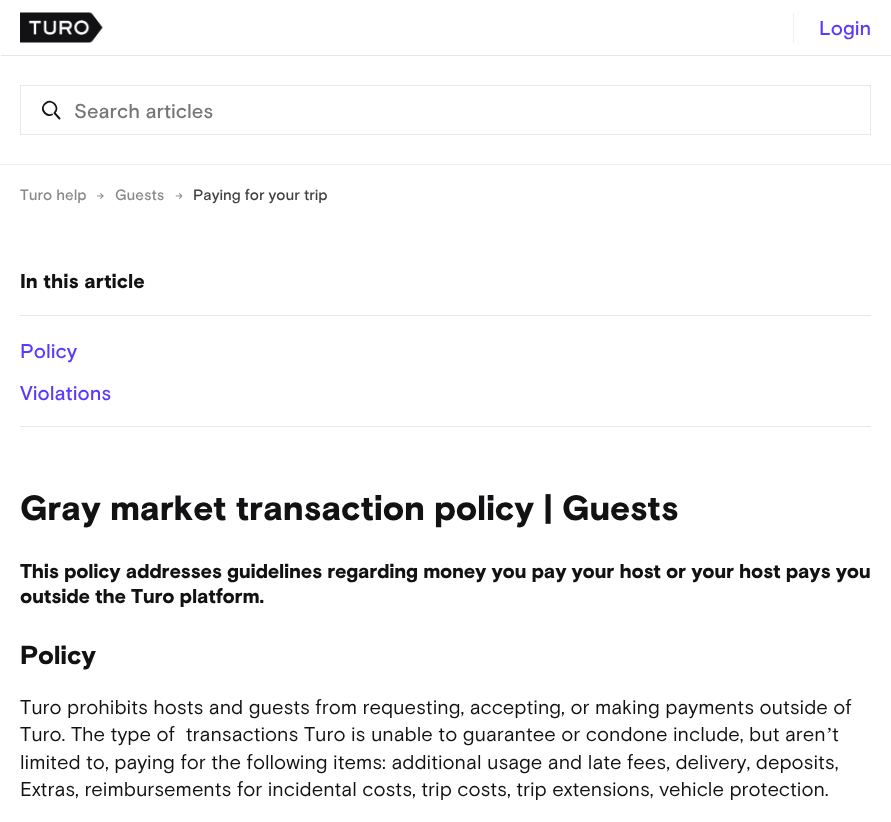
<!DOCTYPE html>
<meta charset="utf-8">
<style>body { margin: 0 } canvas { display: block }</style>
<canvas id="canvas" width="891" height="822"></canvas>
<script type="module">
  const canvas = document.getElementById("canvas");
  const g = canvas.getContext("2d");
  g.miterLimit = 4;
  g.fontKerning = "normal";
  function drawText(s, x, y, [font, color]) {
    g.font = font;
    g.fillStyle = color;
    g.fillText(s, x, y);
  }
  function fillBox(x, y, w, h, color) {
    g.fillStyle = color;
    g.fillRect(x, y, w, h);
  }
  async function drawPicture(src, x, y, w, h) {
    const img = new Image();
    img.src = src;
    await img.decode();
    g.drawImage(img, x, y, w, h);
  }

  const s1 = ["500 20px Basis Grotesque", "#593CFB"];
  const s2 = ["500 20px Basis Grotesque", "#767677"];
  const s3 = ["500 15px Basis Grotesque", "#898989"];
  const s4 = ["500 15px Basis Grotesque", "#414143"];
  const s5 = ["900 20px Basis Grotesque", "#121214"];
  const s6 = ["900 35px Basis Grotesque", "#121214"];
  const s7 = ["900 26px Basis Grotesque", "#121214"];
  const s8 = ["20px Basis Grotesque", "#121214"];
  const s9 = ["20px Liberation Serif", "#121214"];

  fillBox(0, 0, 891, 822, "#FFFFFF");
  fillBox(0, 164, 891, 1, "#EDECEE");
  await drawPicture("pic1.png", 20, 12, 83, 31);
  fillBox(793, 13, 1, 30, "#EFEEF6");
  drawText("Login", 819, 35, s1);
  fillBox(1, 55, 890, 1, "#E7E7E8");
  g.beginPath();
  g.moveTo(59.5, 118.5);
  g.lineTo(54.5, 113);
  g.bezierCurveTo(60, 107.5, 52.5, 98.5, 46, 103);
  g.bezierCurveTo(39, 107.5, 45, 117.5, 52, 114.5);
  g.strokeStyle = "#121214";
  g.lineWidth = 1.9;
  g.lineCap = "round";
  g.lineJoin = "round";
  g.stroke();
  g.strokeStyle = "#E7E7E8";
  g.lineWidth = 1;
  g.lineJoin = "miter";
  g.strokeRect(20.5, 85.5, 850, 49);
  drawText("Search articles", 74, 118, s2);
  drawText("Turo help", 20, 200, s3);
  await drawPicture("pic2.png", 97, 193, 7, 6);
  drawText("Guests", 115, 200, s3);
  await drawPicture("pic3.png", 175, 193, 8, 6);
  drawText("Paying for your trip", 193, 200, s4);
  fillBox(20, 426, 851, 1, "#E7E7E8");
  drawText("In this article", 20, 288, s5);
  fillBox(20, 315, 851, 1, "#E7E7E8");
  drawText("Policy", 20, 358, s1);
  drawText("Violations", 20, 400, s1);
  g.letterSpacing = "-0.25px";
  drawText("Gray market transaction policy | Guests", 20, 520, s6);
  drawText("This policy addresses guidelines regarding money you pay your host or your host pays you", 20, 578, s5);
  drawText("outside the Turo platform.", 20, 603, s5);
  drawText("Policy", 20, 664, s7);
  g.letterSpacing = "0px";
  drawText("Turo prohibits hosts and guests from requesting, accepting, or making payments outside of", 20, 714, s8);
  drawText("Turo. The type of  transactions Turo is unable to guarantee or condone include, but aren", 20, 741, s8);
  drawText("’", 826, 741, s9);
  drawText("t", 832, 741, s8);
  drawText("limited to, paying for the following items: additional usage and late fees, delivery, deposits,", 20, 769, s8);
  drawText("Extras, reimbursements for incidental costs, trip costs, trip extensions, vehicle protection.", 20, 796, s8);
</script>
